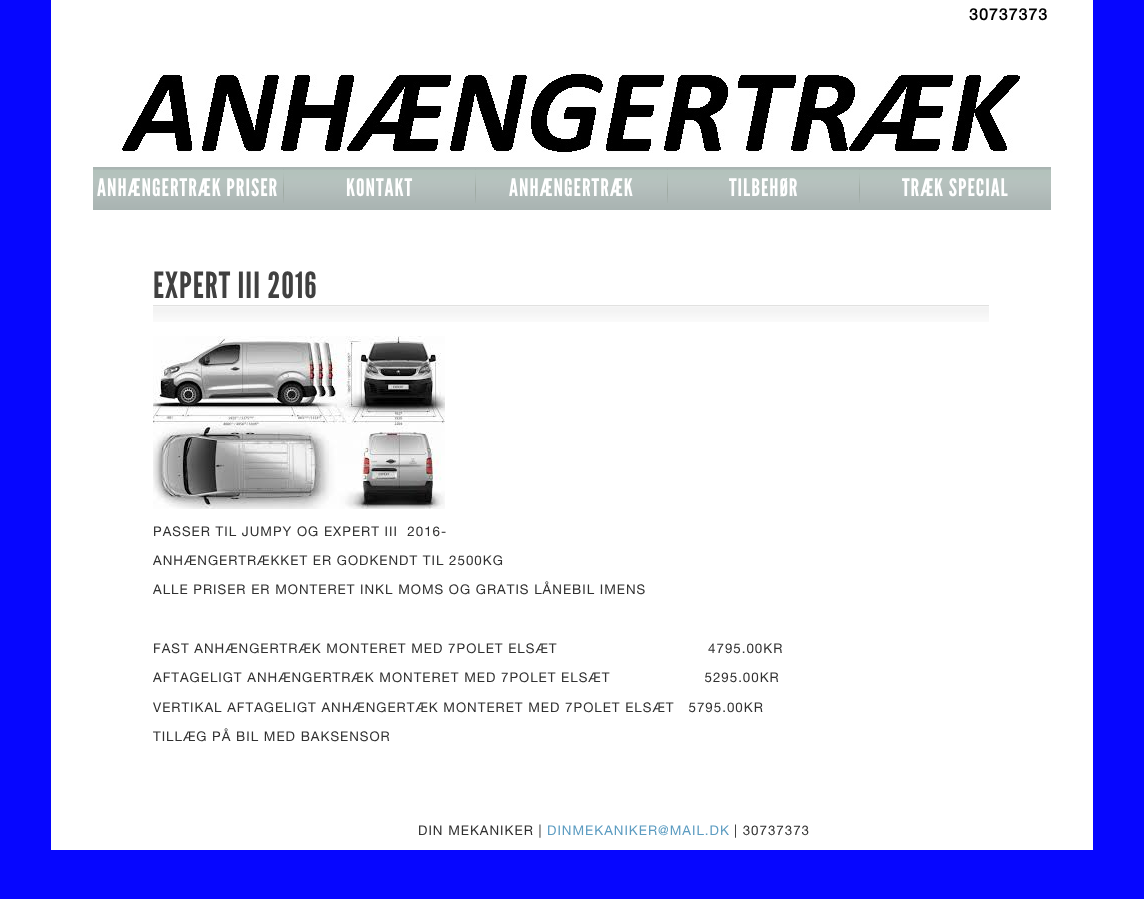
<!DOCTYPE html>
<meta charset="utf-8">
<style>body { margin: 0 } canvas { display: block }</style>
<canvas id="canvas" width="1144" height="899"></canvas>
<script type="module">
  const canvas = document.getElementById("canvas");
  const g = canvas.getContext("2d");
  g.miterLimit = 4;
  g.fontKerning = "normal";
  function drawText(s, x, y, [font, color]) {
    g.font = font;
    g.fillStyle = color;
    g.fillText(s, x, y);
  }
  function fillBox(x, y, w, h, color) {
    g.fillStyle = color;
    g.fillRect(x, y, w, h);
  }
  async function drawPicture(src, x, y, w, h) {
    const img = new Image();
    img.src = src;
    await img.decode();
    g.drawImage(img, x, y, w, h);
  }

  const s1 = ["bold 16px Helvetica Neue", "#000000"];
  const s2 = ["24px League Gothic", "#FFFFFF"];
  const s3 = ["36px League Gothic", "#404040"];
  const s4 = ["13.35px Helvetica Neue", "#303030"];
  const s5 = ["13.35px Helvetica Neue", "#5C9CC1"];

  fillBox(0, 0, 1144, 899, "#0606FF");
  fillBox(51, 0, 1042, 850, "#FFFFFF");
  g.letterSpacing = "1px";
  drawText("30737373", 969, 20, s1);
  await drawPicture("pic1.png", 118, 74, 902, 79);
  await drawPicture("pic2.png", 93, 167, 958, 43);
  drawText("ANHÆNGERTRÆK PRISER", 97, 196, s2);
  await drawPicture("pic3.png", 283, 169, 1, 34);
  drawText("KONTAKT", 346, 196, s2);
  await drawPicture("pic3.png", 475, 169, 1, 34);
  drawText("ANHÆNGERTRÆK", 509, 196, s2);
  await drawPicture("pic3.png", 667, 169, 1, 34);
  drawText("TILBEHØR", 729, 196, s2);
  await drawPicture("pic3.png", 859, 169, 1, 34);
  drawText("TRÆK SPECIAL", 902, 196, s2);
  drawText("EXPERT III 2016", 153, 298, s3);
  await drawPicture("pic4.png", 153, 305, 836, 17);
  await drawPicture("pic5.png", 153, 336, 292, 173);
  drawText("PASSER TIL JUMPY OG EXPERT III  2016-", 153, 536, s4);
  drawText("ANHÆNGERTRÆKKET ER GODKENDT TIL 2500KG", 153, 565, s4);
  drawText("ALLE PRISER ER MONTERET INKL MOMS OG GRATIS LÅNEBIL IMENS", 153, 594, s4);
  drawText("FAST ANHÆNGERTRÆK MONTERET MED 7POLET ELSÆT                                4795.00KR", 153, 653, s4);
  drawText("AFTAGELIGT ANHÆNGERTRÆK MONTERET MED 7POLET ELSÆT                    5295.00KR", 153, 682, s4);
  drawText("VERTIKAL AFTAGELIGT ANHÆNGERTÆK MONTERET MED 7POLET ELSÆT   5795.00KR", 153, 712, s4);
  drawText("TILLÆG PÅ BIL MED BAKSENSOR", 153, 741, s4);
  drawText("DIN MEKANIKER |", 418, 835, s4);
  drawText("DINMEKANIKER@MAIL.DK", 547, 835, s5);
  drawText("| 30737373", 734, 835, s4);
</script>
